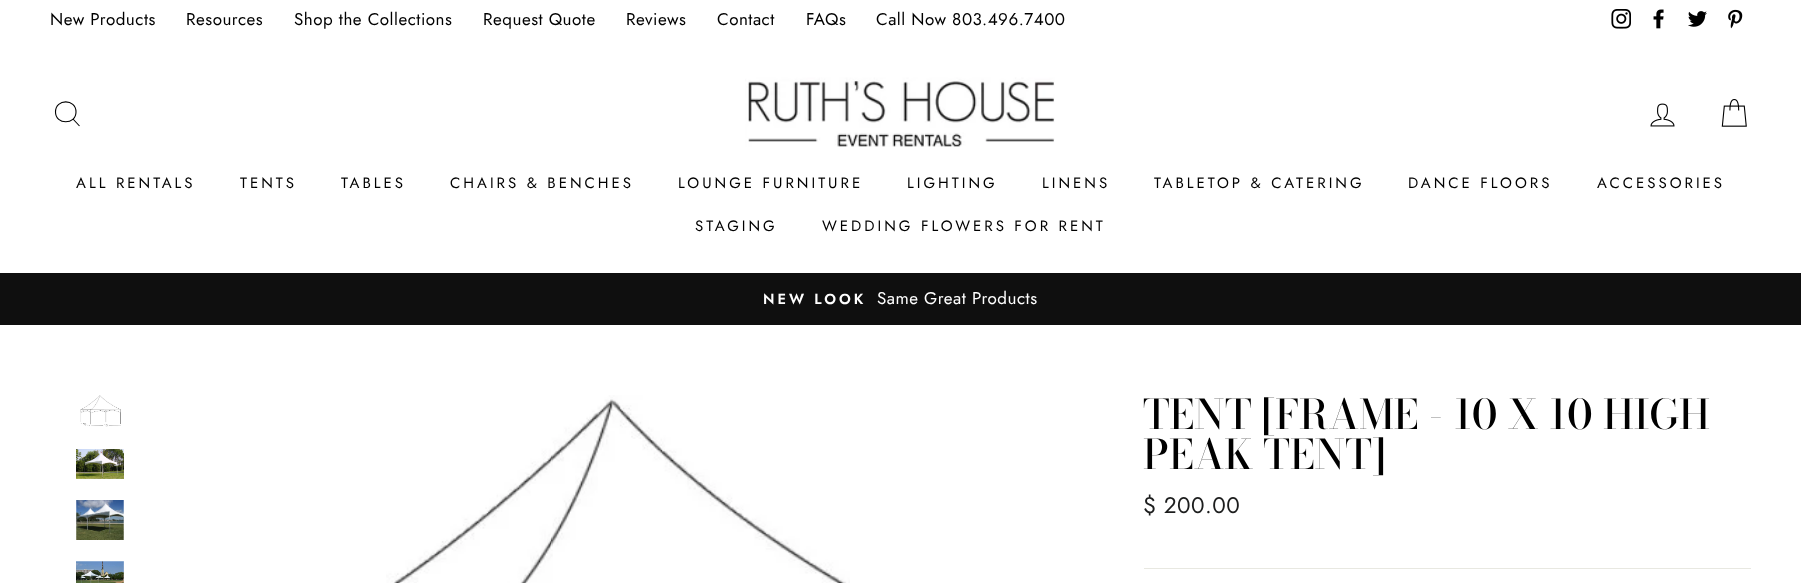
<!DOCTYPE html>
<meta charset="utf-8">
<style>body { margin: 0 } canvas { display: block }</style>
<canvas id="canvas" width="1801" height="583"></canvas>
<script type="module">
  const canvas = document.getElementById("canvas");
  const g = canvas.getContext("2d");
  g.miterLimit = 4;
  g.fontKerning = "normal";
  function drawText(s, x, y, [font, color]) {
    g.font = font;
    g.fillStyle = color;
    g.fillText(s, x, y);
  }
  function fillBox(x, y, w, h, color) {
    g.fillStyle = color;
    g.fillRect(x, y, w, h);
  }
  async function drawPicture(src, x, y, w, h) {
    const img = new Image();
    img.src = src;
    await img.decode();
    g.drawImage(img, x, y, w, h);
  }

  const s1 = ["17px Jost", "#000000"];
  const s2 = ["15px Jost", "#000000"];
  const s3 = ["600 14.5px Jost", "#FFFFFF"];
  const s4 = ["17px Jost", "#FFFFFF"];
  const s5 = ["500 40.8px Bodoni Moda", "#000000"];
  const s6 = ["22.5px Jost", "#1C1D1D"];

  fillBox(0, 0, 1801, 583, "#FFFFFF");
  g.letterSpacing = "0.5px";
  drawText("New Products", 50, 25, s1);
  drawText("Resources", 186, 25, s1);
  drawText("Shop the Collections", 294, 25, s1);
  drawText("Request Quote", 483, 25, s1);
  drawText("Reviews", 626, 25, s1);
  drawText("Contact", 717, 25, s1);
  drawText("FAQs", 806, 25, s1);
  drawText("Call Now 803.496.7400", 876, 25, s1);
  await drawPicture("pic1.png", 1611, 9, 20, 20);
  await drawPicture("pic2.png", 1653, 9, 11, 20);
  await drawPicture("pic3.png", 1688, 11, 19, 16);
  await drawPicture("pic4.png", 1728, 9, 15, 20);
  g.fillStyle = "rgba(0, 0, 0, 0.2)";
  g.filter = "blur(0.5px)";
  g.beginPath();
  g.rect(0, 40, 1801, 233);
  g.fill();
  g.filter = "none";
  fillBox(0, 40, 1801, 233, "#FFFFFF");
  g.beginPath();
  g.moveTo(76, 112);
  g.bezierCurveTo(76, 125, 55.5, 125, 55.5, 112);
  g.bezierCurveTo(55.5, 98.5, 76, 98.5, 76, 112);
  g.closePath();
  g.moveTo(79.5, 126);
  g.lineTo(73, 119);
  g.strokeStyle = "#000000";
  g.lineWidth = 1.1;
  g.stroke();
  await drawPicture("pic5.png", 745, 77, 310, 70);
  await drawPicture("pic6.png", 1650, 103, 25, 24);
  await drawPicture("pic7.png", 1721, 99, 26, 28);
  g.letterSpacing = "3px";
  drawText("ALL RENTALS", 76, 188, s2);
  drawText("TENTS", 240, 188, s2);
  drawText("TABLES", 341, 188, s2);
  drawText("CHAIRS & BENCHES", 450, 188, s2);
  drawText("LOUNGE FURNITURE", 678, 188, s2);
  drawText("LIGHTING", 907, 188, s2);
  drawText("LINENS", 1042, 188, s2);
  drawText("TABLETOP & CATERING", 1154, 188, s2);
  drawText("DANCE FLOORS", 1408, 188, s2);
  drawText("ACCESSORIES", 1597, 188, s2);
  drawText("STAGING", 695, 231, s2);
  drawText("WEDDING FLOWERS FOR RENT", 822, 231, s2);
  fillBox(0, 273, 1801, 52, "#0F0F0F");
  drawText("NEW LOOK", 763, 304, s3);
  g.letterSpacing = "0.5px";
  drawText("Same Great Products", 877, 304, s4);
  await drawPicture("pic8.png", 80, 395, 41, 32);
  await drawPicture("pic9.png", 76, 449, 48, 30);
  await drawPicture("pic10.png", 76, 500, 48, 40);
  await drawPicture("pic11.png", 76, 561, 48, 22);
  await drawPicture("pic12.png", 386, 395, 464, 188);
  g.letterSpacing = "0px";
  drawText("TENT [FRAME - 10 X 10 HIGH", 1143, 429, s5);
  drawText("PEAK TENT]", 1143, 469, s5);
  g.letterSpacing = "0.5px";
  drawText("$ 200.00", 1143, 513, s6);
  fillBox(1144, 568, 607, 1, "#E8E8E1");
</script>
